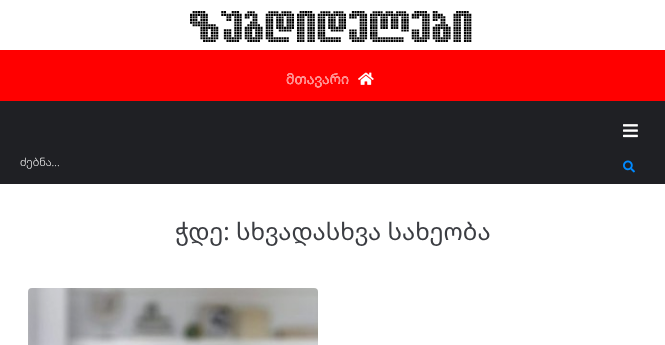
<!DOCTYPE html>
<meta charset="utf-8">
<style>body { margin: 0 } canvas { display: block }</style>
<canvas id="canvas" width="665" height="345"></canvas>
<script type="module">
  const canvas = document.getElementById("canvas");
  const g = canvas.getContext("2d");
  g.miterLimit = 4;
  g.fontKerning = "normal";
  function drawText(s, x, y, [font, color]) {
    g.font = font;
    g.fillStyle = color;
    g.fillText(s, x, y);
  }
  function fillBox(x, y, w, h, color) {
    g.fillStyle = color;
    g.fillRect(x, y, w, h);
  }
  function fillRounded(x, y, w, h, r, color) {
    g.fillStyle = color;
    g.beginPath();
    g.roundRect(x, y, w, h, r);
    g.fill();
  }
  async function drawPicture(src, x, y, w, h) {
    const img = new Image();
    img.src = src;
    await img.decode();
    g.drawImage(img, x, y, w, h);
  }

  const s1 = ["bold 30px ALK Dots", "#000000"];
  const s2 = ["14px Noto Sans Georgian", "#FFFFFF"];
  const s3 = ["14px Noto Sans Georgian", "#FF8787"];
  const s4 = ["300 11px Noto Sans Georgian", "#FFFFFF"];
  const s5 = ["24px Noto Sans Georgian", "#3B3D42"];

  fillBox(0, 0, 665, 345, "#FFFFFF");
  drawText("ზუგდიდელები", 190, 36, s1);
  fillBox(0, 50, 665, 51, "#FF0000");
  drawText("მთავარი", 286, 84, s2);
  await drawPicture("pic1.png", 358, 72, 16, 13);
  drawText("მთავარი", 286, 84, s3);
  fillBox(0, 101, 665, 83, "#1F2024");
  await drawPicture("pic2.png", 623, 124, 15, 14);
  drawText("ძებნა...", 20, 166, s4);
  await drawPicture("pic3.png", 623, 160, 12, 13);
  drawText("ჭდე: სხვადასხვა სახეობა", 175, 240, s5);
  await drawPicture("pic4.png", 28, 288, 290, 57);
  fillRounded(28, 288, 290, 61, 4, "rgba(0, 0, 0, 0.1)");
</script>
